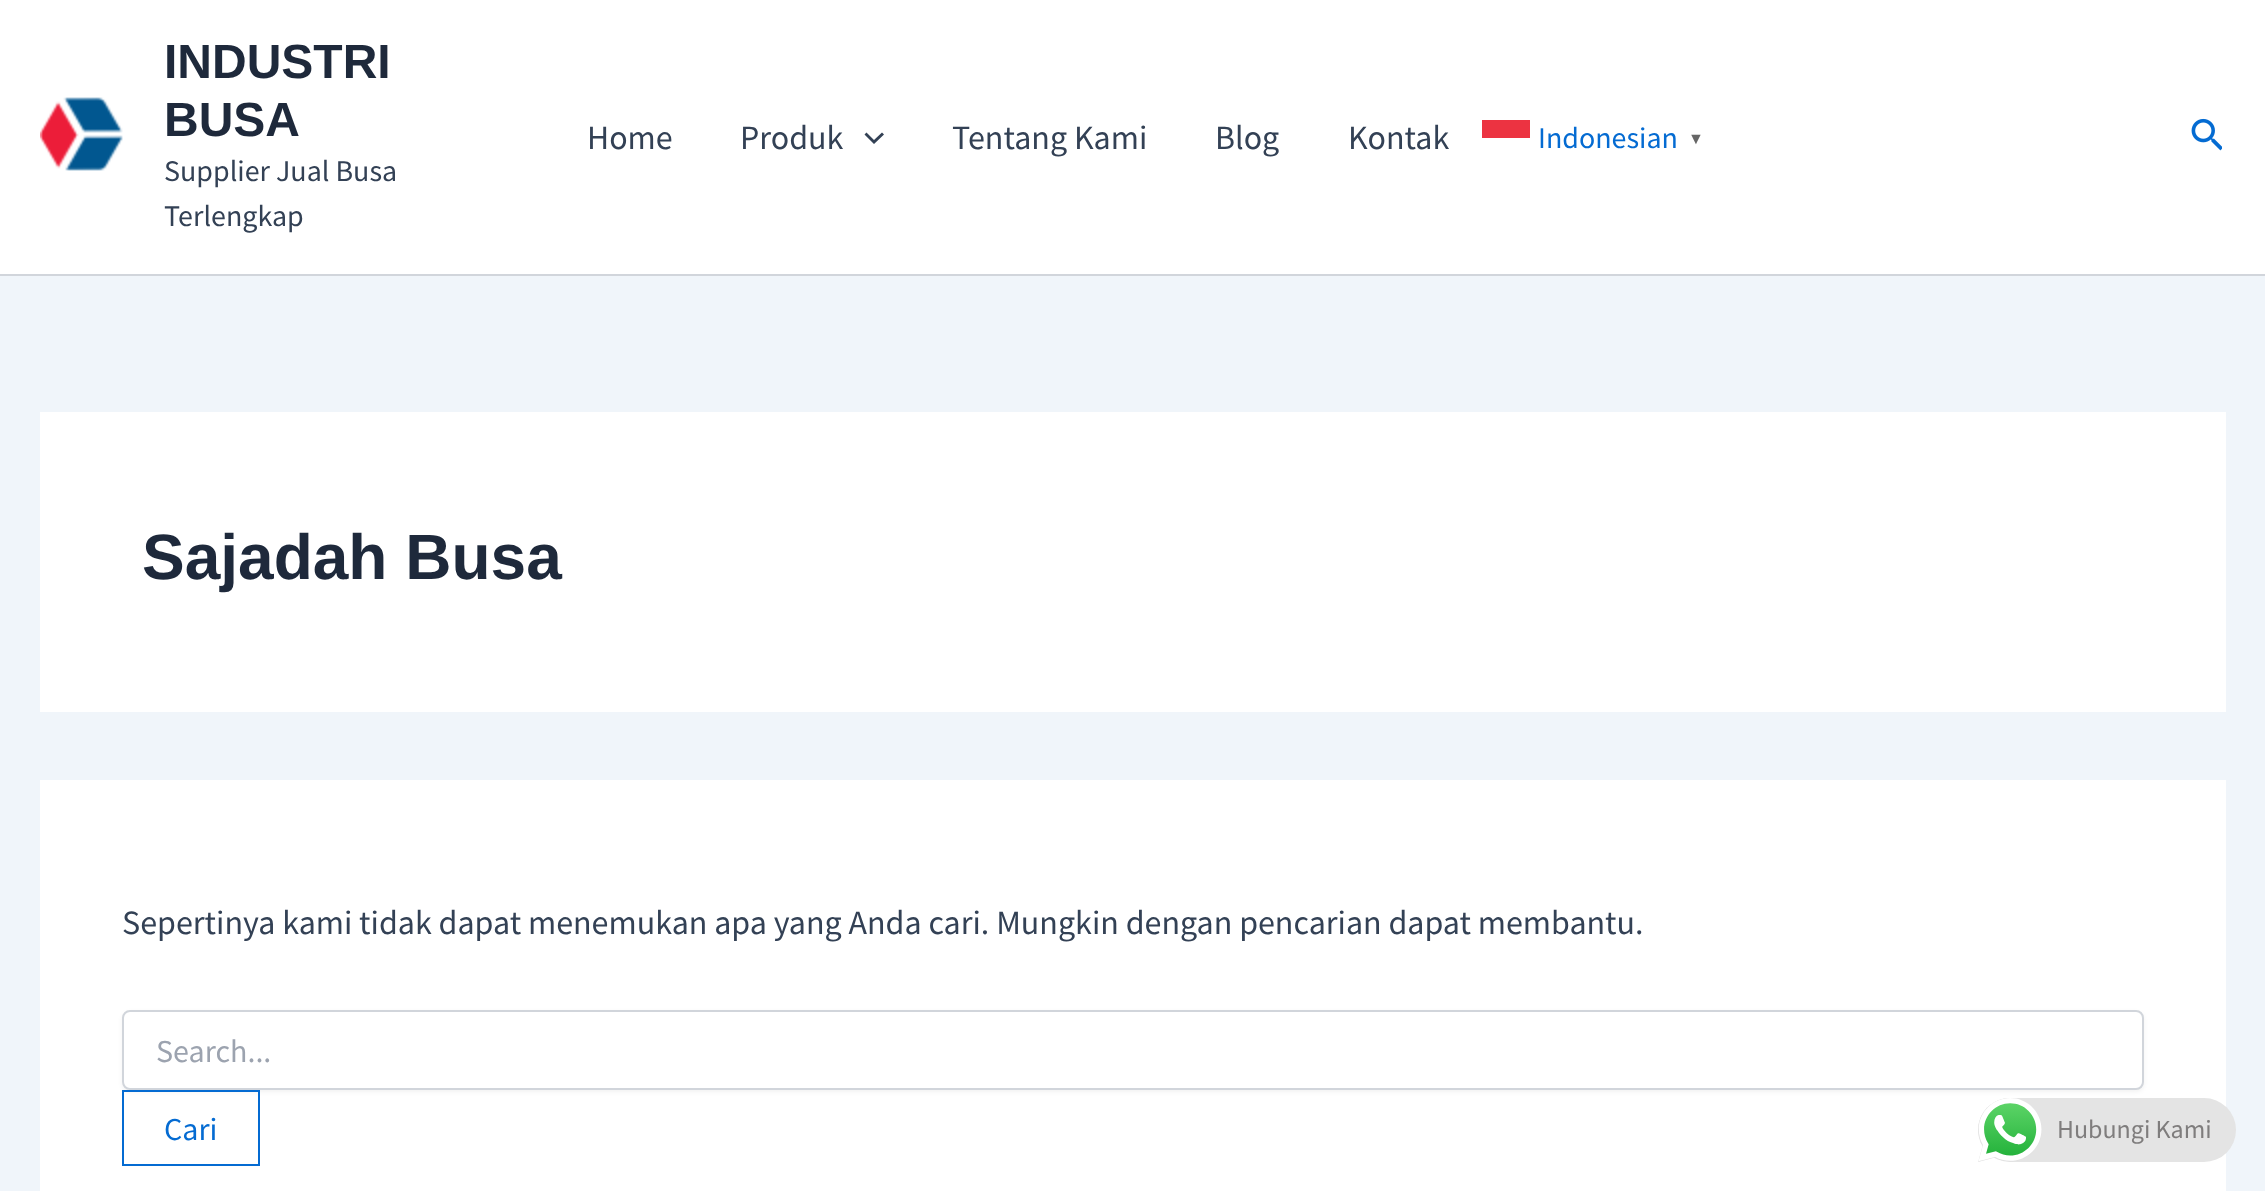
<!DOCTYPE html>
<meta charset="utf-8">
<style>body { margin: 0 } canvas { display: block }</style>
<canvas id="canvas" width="2265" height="1191"></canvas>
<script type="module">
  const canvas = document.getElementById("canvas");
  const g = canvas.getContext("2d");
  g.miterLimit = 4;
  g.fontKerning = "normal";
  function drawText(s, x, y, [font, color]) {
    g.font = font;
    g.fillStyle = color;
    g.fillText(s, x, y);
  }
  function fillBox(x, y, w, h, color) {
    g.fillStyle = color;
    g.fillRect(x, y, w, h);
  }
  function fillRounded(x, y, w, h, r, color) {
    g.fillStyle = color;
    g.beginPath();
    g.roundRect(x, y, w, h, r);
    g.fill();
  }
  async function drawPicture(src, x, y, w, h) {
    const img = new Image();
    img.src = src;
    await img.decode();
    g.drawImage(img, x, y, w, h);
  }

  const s1 = ["bold 48px Liberation Sans", "#1E293B"];
  const s2 = ["30px Source Sans Pro", "#334155"];
  const s3 = ["34px Source Sans Pro", "#334155"];
  const s4 = ["30px Source Sans Pro", "#046BD2"];
  const s5 = ["bold 16px Liberation Sans", "#666666"];
  const s6 = ["bold 64px Liberation Sans", "#1E293B"];
  const s7 = ["32px Source Sans Pro", "#9CA3AF"];
  const s8 = ["32px Source Sans Pro", "#046BD2"];
  const s9 = ["26px Source Sans Pro", "#7F7D7D"];

  fillBox(0, 0, 2265, 1191, "#F0F5FA");
  fillBox(0, 0, 2265, 274, "#FFFFFF");
  fillBox(0, 274, 2265, 2, "#D1D5DB");
  await drawPicture("pic1.png", 40, 97, 83, 74);
  drawText("INDUSTRI", 164, 78, s1);
  drawText("BUSA", 164, 136, s1);
  drawText("Supplier Jual Busa", 164, 181, s2);
  drawText("Terlengkap", 164, 226, s2);
  drawText("Home", 587, 149, s3);
  drawText("Produk", 740, 149, s3);
  g.beginPath();
  g.moveTo(864.5, 134.5);
  g.lineTo(874, 144);
  g.lineTo(884, 134.5);
  g.lineTo(882, 132.5);
  g.lineTo(874, 140);
  g.lineTo(866.5, 132.5);
  g.closePath();
  g.fill();
  drawText("Tentang Kami", 952, 149, s3);
  drawText("Blog", 1215, 149, s3);
  drawText("Kontak", 1348, 149, s3);
  fillBox(1482, 120, 48, 18, "#EC3341");
  drawText("Indonesian", 1538, 148, s4);
  drawText("▼", 1688, 144, s5);
  await drawPicture("pic2.png", 2191, 118, 31, 33);
  fillBox(40, 412, 2186, 300, "#FFFFFF");
  drawText("Sajadah Busa", 142, 579, s6);
  fillBox(40, 780, 2186, 411, "#FFFFFF");
  drawText("Sepertinya kami tidak dapat menemukan apa yang Anda cari. Mungkin dengan pencarian dapat membantu.", 122, 934, s3);
  g.fillStyle = "rgba(0, 0, 0, 0.05)";
  g.filter = "blur(2px)";
  g.beginPath();
  g.roundRect(122, 1012, 2022, 80, 8);
  g.fill();
  g.filter = "none";
  g.fillStyle = "#FFFFFF";
  g.beginPath();
  g.roundRect(123, 1011, 2020, 78, 7);
  g.fill();
  g.strokeStyle = "#D1D5DB";
  g.lineWidth = 2;
  g.stroke();
  drawText("Search...", 156, 1062, s7);
  g.strokeStyle = "#046BD2";
  g.strokeRect(123, 1091, 136, 74);
  drawText("Cari", 164, 1140, s8);
  fillRounded(1978, 1098, 258, 64, 32, "#E4E4E4");
  await drawPicture("pic3.png", 1978, 1098, 64, 64);
  drawText("Hubungi Kami", 2057, 1138, s9);
</script>
